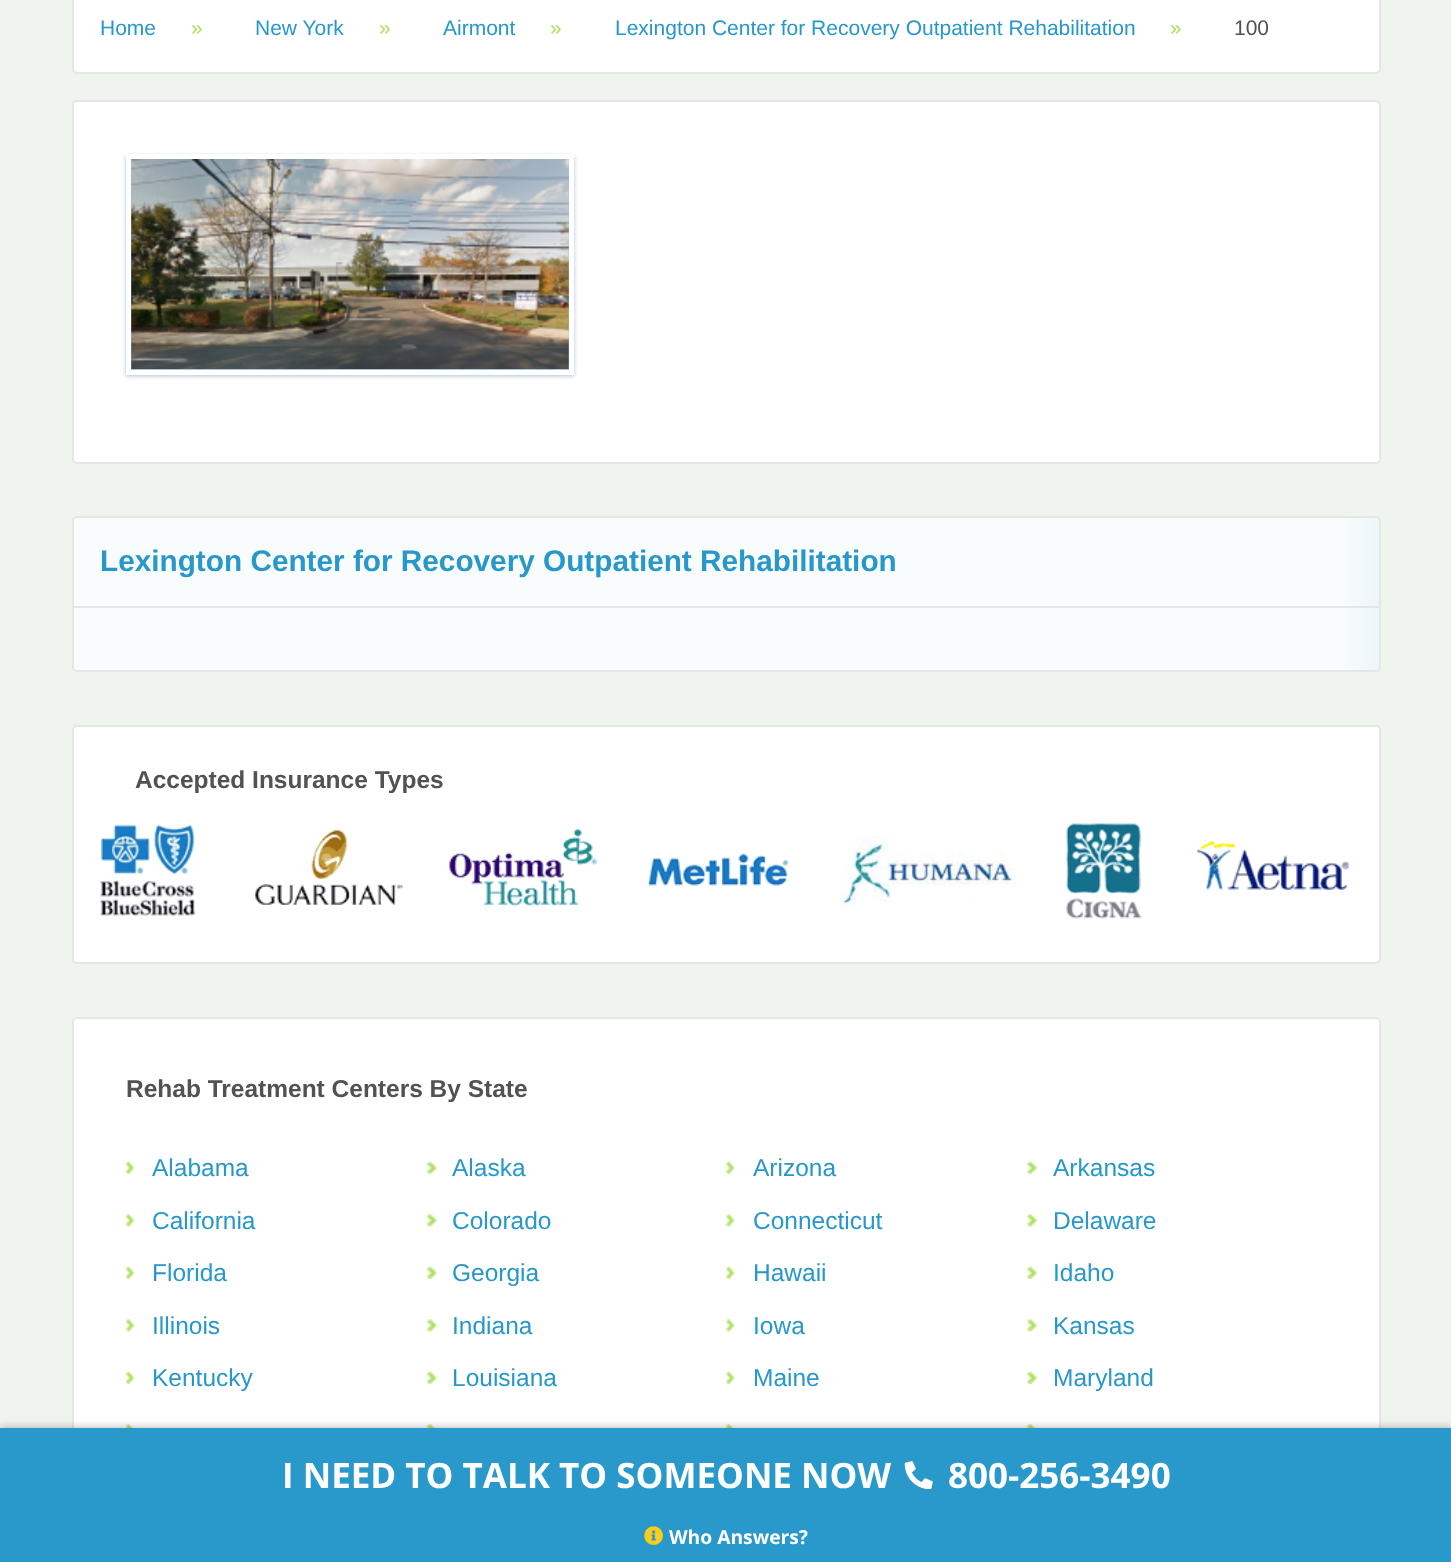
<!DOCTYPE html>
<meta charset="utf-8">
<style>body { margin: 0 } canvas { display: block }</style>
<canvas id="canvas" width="1451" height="1562"></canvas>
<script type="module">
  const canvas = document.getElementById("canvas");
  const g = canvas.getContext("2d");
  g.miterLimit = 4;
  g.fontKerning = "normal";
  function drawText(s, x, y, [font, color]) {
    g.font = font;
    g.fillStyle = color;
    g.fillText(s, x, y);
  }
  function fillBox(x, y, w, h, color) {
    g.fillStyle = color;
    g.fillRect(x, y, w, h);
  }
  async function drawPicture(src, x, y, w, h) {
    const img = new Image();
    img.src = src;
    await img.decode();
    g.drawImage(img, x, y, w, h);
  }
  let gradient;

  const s1 = ["21px Liberation Sans", "#2897C9"];
  const s2 = ["21px Liberation Sans", "#AEE05E"];
  const s3 = ["21px Liberation Sans", "#525252"];
  const s4 = ["bold 29.75px Liberation Sans", "#2897C9"];
  const s5 = ["bold 24.5px Liberation Sans", "#525252"];
  const s6 = ["24.5px Liberation Sans", "#2897C9"];
  const s7 = ["bold 35px Open Sans", "#FFFFFF"];
  const s8 = ["bold 19.25px Open Sans", "#FFFFFF"];

  fillBox(0, 0, 1451, 1562, "#EFF4EF");
  g.fillStyle = "#FFFFFF";
  g.beginPath();
  g.roundRect(73, -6, 1307, 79, 4);
  g.fill();
  g.strokeStyle = "#E4E7E4";
  g.lineWidth = 2;
  g.stroke();
  drawText("Home", 100, 35, s1);
  drawText("»", 191, 35, s2);
  drawText("New York", 255, 35, s1);
  drawText("»", 379, 35, s2);
  drawText("Airmont", 443, 35, s1);
  drawText("»", 550, 35, s2);
  drawText("Lexington Center for Recovery Outpatient Rehabilitation", 615, 35, s1);
  drawText("»", 1170, 35, s2);
  drawText("100", 1234, 35, s3);
  g.fillStyle = "#FFFFFF";
  g.beginPath();
  g.roundRect(73, 101, 1307, 362, 4);
  g.fill();
  g.stroke();
  g.fillStyle = "#ABC3D2";
  g.filter = "blur(2px)";
  g.beginPath();
  g.rect(126, 156, 448, 220);
  g.fill();
  g.filter = "none";
  g.strokeStyle = "#FFFFFF";
  g.lineWidth = 5;
  g.strokeRect(128.5, 156.5, 443, 216);
  await drawPicture("pic1.png", 131, 159, 438, 210);
  g.save();
  g.beginPath();
  g.roundRect(72, 516, 1309, 156, 5);
  g.clip();
  gradient = g.createLinearGradient(74, 594, 1379, 594);
  gradient.addColorStop(0.97, "#F8FCFD");
  gradient.addColorStop(1, "#EDF6FB");
  g.fillStyle = gradient;
  g.fillRect(74, 516, 1305, 156);
  g.restore();
  g.beginPath();
  g.roundRect(73, 517, 1307, 154, 4);
  g.strokeStyle = "#E4E7E4";
  g.lineWidth = 2;
  g.stroke();
  fillBox(74, 606, 1305, 2, "#E4E7E4");
  drawText("Lexington Center for Recovery Outpatient Rehabilitation", 100, 571, s4);
  g.fillStyle = "#FFFFFF";
  g.beginPath();
  g.roundRect(73, 726, 1307, 237, 4);
  g.fill();
  g.stroke();
  drawText("Accepted Insurance Types", 135, 788, s5);
  await drawPicture("pic2.png", 99, 823, 1250, 96);
  g.fillStyle = "#FFFFFF";
  g.beginPath();
  g.roundRect(73, 1018, 1307, 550, 4);
  g.fill();
  g.stroke();
  drawText("Rehab Treatment Centers By State", 126, 1097, s5);
  await drawPicture("pic3.png", 126, 1161, 9, 13);
  drawText("Alabama", 152, 1176, s6);
  await drawPicture("pic4.png", 427, 1161, 11, 13);
  drawText("Alaska", 452, 1176, s6);
  await drawPicture("pic5.png", 726, 1161, 9, 13);
  drawText("Arizona", 753, 1176, s6);
  await drawPicture("pic6.png", 1027, 1161, 11, 13);
  drawText("Arkansas", 1053, 1176, s6);
  await drawPicture("pic7.png", 126, 1214, 9, 13);
  drawText("California", 152, 1229, s6);
  await drawPicture("pic8.png", 427, 1214, 11, 13);
  drawText("Colorado", 452, 1229, s6);
  await drawPicture("pic9.png", 726, 1214, 9, 13);
  drawText("Connecticut", 753, 1229, s6);
  await drawPicture("pic10.png", 1027, 1214, 11, 13);
  drawText("Delaware", 1053, 1229, s6);
  await drawPicture("pic3.png", 126, 1266, 9, 13);
  drawText("Florida", 152, 1281, s6);
  await drawPicture("pic4.png", 427, 1266, 11, 13);
  drawText("Georgia", 452, 1281, s6);
  await drawPicture("pic5.png", 726, 1266, 9, 13);
  drawText("Hawaii", 753, 1281, s6);
  await drawPicture("pic6.png", 1027, 1266, 11, 13);
  drawText("Idaho", 1053, 1281, s6);
  await drawPicture("pic7.png", 126, 1319, 9, 13);
  drawText("Illinois", 152, 1334, s6);
  await drawPicture("pic8.png", 427, 1319, 11, 13);
  drawText("Indiana", 452, 1334, s6);
  await drawPicture("pic9.png", 726, 1319, 9, 13);
  drawText("Iowa", 753, 1334, s6);
  await drawPicture("pic10.png", 1027, 1319, 11, 13);
  drawText("Kansas", 1053, 1334, s6);
  await drawPicture("pic3.png", 126, 1371, 9, 13);
  drawText("Kentucky", 152, 1386, s6);
  await drawPicture("pic4.png", 427, 1371, 11, 13);
  drawText("Louisiana", 452, 1386, s6);
  await drawPicture("pic5.png", 726, 1371, 9, 13);
  drawText("Maine", 753, 1386, s6);
  await drawPicture("pic6.png", 1027, 1371, 11, 13);
  drawText("Maryland", 1053, 1386, s6);
  await drawPicture("pic11.png", 126, 1424, 8, 4);
  await drawPicture("pic12.png", 427, 1424, 9, 4);
  await drawPicture("pic13.png", 726, 1424, 8, 4);
  await drawPicture("pic14.png", 1027, 1424, 10, 4);
  g.fillStyle = "rgba(59, 39, 39, 0.4)";
  g.filter = "blur(4.5px)";
  g.beginPath();
  g.rect(0, 1428, 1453, 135);
  g.fill();
  g.filter = "none";
  fillBox(0, 1428, 1451, 134, "#2999CC");
  drawText("I NEED TO TALK TO SOMEONE NOW", 282, 1488, s7);
  await drawPicture("pic15.png", 904, 1461, 29, 28);
  drawText("800-256-3490", 948, 1488, s7);
  await drawPicture("pic16.png", 644, 1526, 19, 19);
  drawText("Who Answers?", 669, 1544, s8);
</script>
